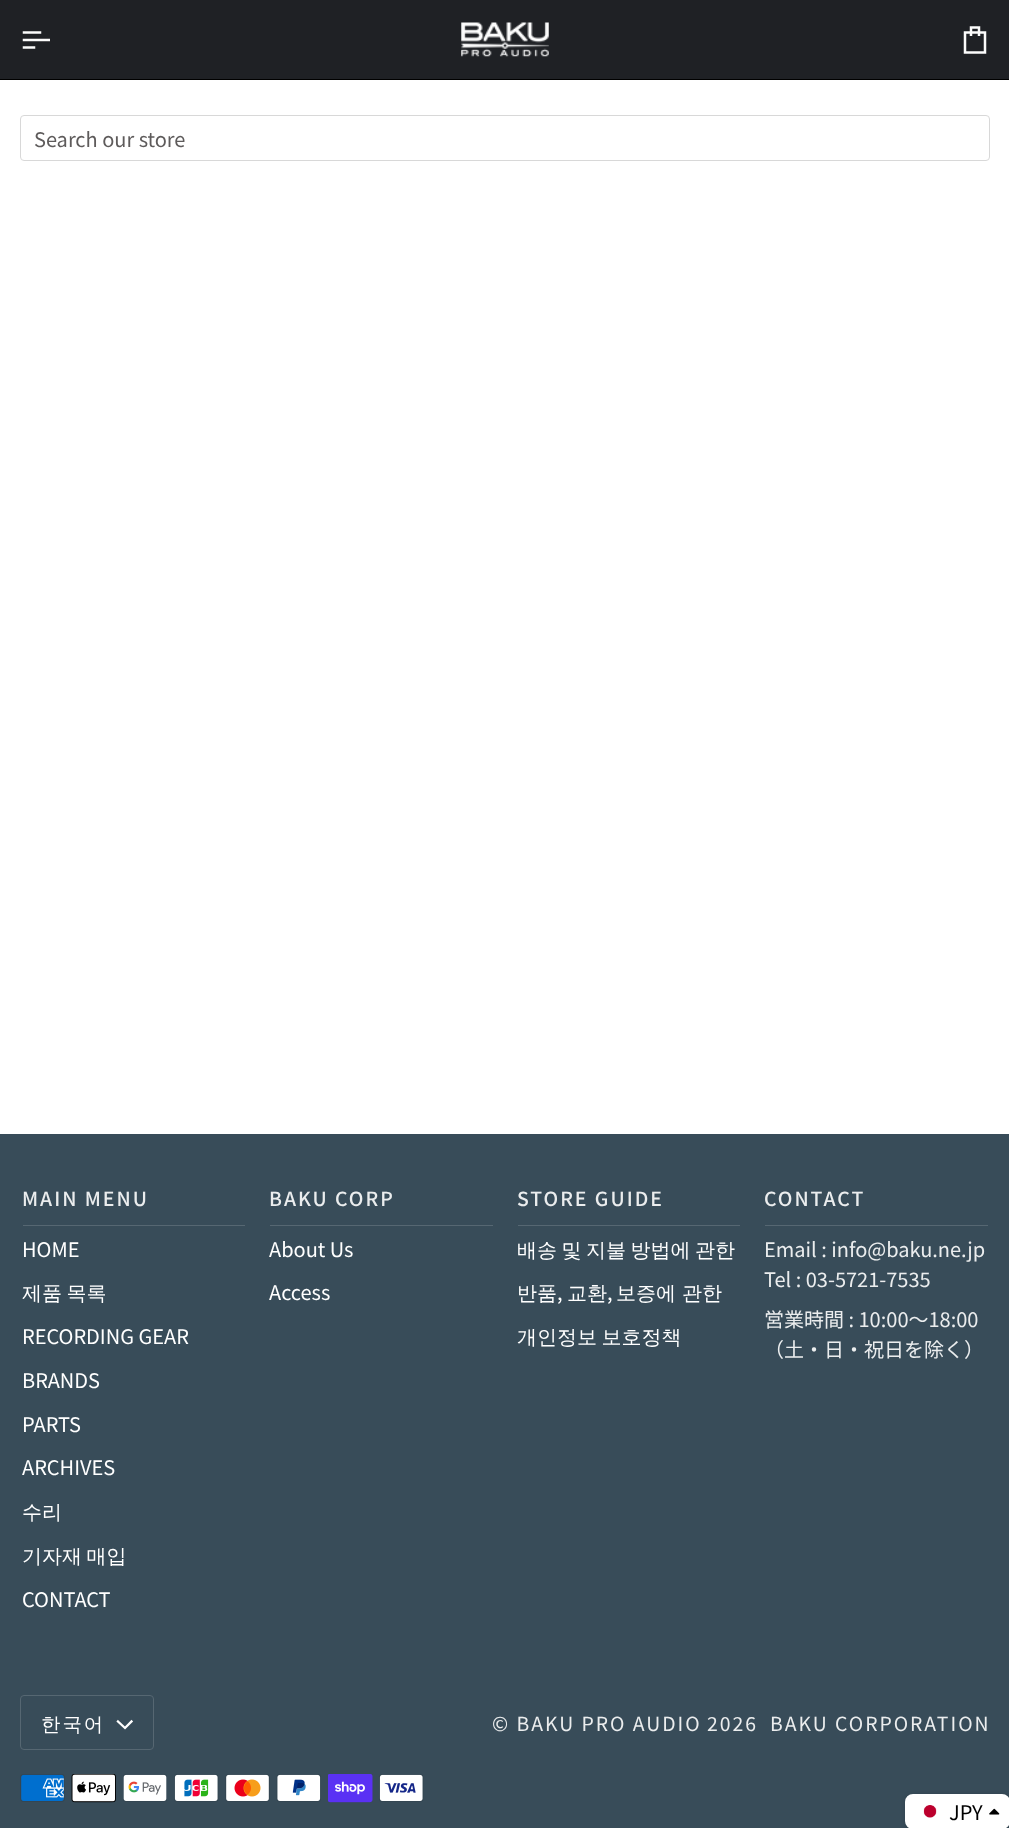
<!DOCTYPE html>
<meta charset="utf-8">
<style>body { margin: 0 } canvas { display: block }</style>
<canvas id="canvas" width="1009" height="1828"></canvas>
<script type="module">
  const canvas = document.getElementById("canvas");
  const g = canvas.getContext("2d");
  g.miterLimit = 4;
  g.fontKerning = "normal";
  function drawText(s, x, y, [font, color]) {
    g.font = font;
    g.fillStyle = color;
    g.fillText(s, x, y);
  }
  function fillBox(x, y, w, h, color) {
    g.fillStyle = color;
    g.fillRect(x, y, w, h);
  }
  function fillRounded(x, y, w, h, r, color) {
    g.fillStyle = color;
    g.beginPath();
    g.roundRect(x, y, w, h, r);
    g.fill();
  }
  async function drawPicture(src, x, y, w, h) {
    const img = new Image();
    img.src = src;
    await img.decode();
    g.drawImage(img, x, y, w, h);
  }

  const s1 = ["20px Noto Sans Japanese", "#5E5B5B"];
  const s2 = ["500 19.4px Noto Sans Japanese", "#EBEDEE"];
  const s3 = ["20px Noto Sans Japanese", "#FFFFFF"];
  const s4 = ["500 20px WenQuanYi Zen Hei", "#FFFFFF"];
  const s5 = ["20px Noto Sans Japanese", "#EBEDEE"];
  const s6 = ["500 19.4px WenQuanYi Zen Hei", "#FFFFFF"];
  const s7 = ["19.4px Noto Sans Japanese", "#EBEDEE"];
  const s8 = ["20px Noto Sans Japanese", "#000000"];

  fillBox(0, 0, 1009, 1828, "#FFFFFF");
  fillBox(0, 0, 1009, 79, "#1F2125");
  fillBox(0, 79, 1009, 1, "#000000");
  g.save();
  g.beginPath();
  g.rect(20, 25, 30, 30);
  g.clip();
  g.beginPath();
  g.moveTo(40, 32.5);
  g.lineTo(24, 32.5);
  g.moveTo(49, 40);
  g.lineTo(24, 40);
  g.moveTo(34, 47.5);
  g.lineTo(24, 47.5);
  g.strokeStyle = "#FCFCFC";
  g.lineWidth = 2.5;
  g.lineCap = "square";
  g.stroke();
  g.restore();
  await drawPicture("pic1.png", 461, 22, 88, 35);
  g.beginPath();
  g.moveTo(965, 32.5);
  g.lineTo(985, 32.5);
  g.lineTo(985, 52.5);
  g.lineTo(965, 52.5);
  g.closePath();
  g.moveTo(971, 36);
  g.lineTo(971, 27.5);
  g.lineTo(979, 27.5);
  g.lineTo(979, 36);
  g.strokeStyle = "#FCFCFC";
  g.lineWidth = 2.5;
  g.stroke();
  g.beginPath();
  g.roundRect(20.5, 115.5, 969, 45, 3.5);
  g.strokeStyle = "#D8D8D8";
  g.lineWidth = 1;
  g.stroke();
  drawText("Search our store", 34, 147, s1);
  fillBox(0, 1134, 1009, 694, "#384C59");
  fillBox(23, 1225, 222, 1, "#566772");
  g.letterSpacing = "2px";
  drawText("MAIN MENU", 22, 1206, s2);
  g.letterSpacing = "0px";
  drawText("HOME", 22, 1257, s3);
  g.wordSpacing = "-1.5px";
  drawText("제품 목록", 22, 1300, s4);
  g.wordSpacing = "0px";
  drawText("RECORDING GEAR", 22, 1344, s3);
  drawText("BRANDS", 22, 1388, s3);
  drawText("PARTS", 22, 1432, s3);
  drawText("ARCHIVES", 22, 1475, s3);
  drawText("수리", 22, 1519, s4);
  g.wordSpacing = "-1.5px";
  drawText("기자재 매입", 22, 1563, s4);
  g.wordSpacing = "0px";
  drawText("CONTACT", 22, 1607, s3);
  fillBox(270, 1225, 223, 1, "#566772");
  g.letterSpacing = "2px";
  drawText("BAKU CORP", 269, 1206, s2);
  g.letterSpacing = "0px";
  drawText("About Us", 269, 1257, s3);
  drawText("Access", 269, 1300, s3);
  fillBox(518, 1225, 222, 1, "#566772");
  g.letterSpacing = "2px";
  drawText("STORE GUIDE", 517, 1206, s2);
  g.letterSpacing = "0px";
  g.wordSpacing = "-1.5px";
  drawText("배송 및 지불 방법에 관한", 517, 1257, s4);
  g.wordSpacing = "0px";
  drawText("반품", 517, 1300, s4);
  drawText(",", 557, 1300, s3);
  drawText("교환", 567, 1300, s4);
  drawText(",", 607, 1300, s3);
  drawText("보증에 관한", 616, 1300, s4);
  g.wordSpacing = "-1.5px";
  drawText("개인정보 보호정책", 517, 1344, s4);
  fillBox(765, 1225, 223, 1, "#566772");
  g.letterSpacing = "2px";
  g.wordSpacing = "0px";
  drawText("CONTACT", 764, 1206, s2);
  g.letterSpacing = "0px";
  drawText("Email : info@baku.ne.jp", 764, 1257, s5);
  drawText("Tel : 03-5721-7535", 764, 1287, s5);
  drawText("営業時間 : 10:00～18:00", 764, 1327, s5);
  drawText("（土・日・祝日を除く）", 764, 1357, s5);
  g.beginPath();
  g.roundRect(20.5, 1695.5, 133, 54, 3.5);
  g.strokeStyle = "#566772";
  g.stroke();
  g.letterSpacing = "2px";
  drawText("한국어", 41, 1731, s6);
  g.beginPath();
  g.moveTo(118, 1721.5);
  g.lineTo(125, 1728);
  g.lineTo(131.5, 1721.5);
  g.strokeStyle = "#FFFFFF";
  g.lineWidth = 2.3;
  g.lineCap = "square";
  g.stroke();
  drawText("© BAKU PRO AUDIO", 492, 1731, s7);
  drawText("2026", 707, 1731, s7);
  drawText("BAKU CORPORATION", 770, 1731, s7);
  await drawPicture("pic2.png", 20, 1774, 45, 28);
  await drawPicture("pic3.png", 71, 1774, 45, 29);
  await drawPicture("pic4.png", 123, 1774, 44, 28);
  await drawPicture("pic5.png", 174, 1774, 45, 28);
  await drawPicture("pic6.png", 225, 1774, 45, 28);
  await drawPicture("pic7.png", 276, 1774, 45, 28);
  await drawPicture("pic8.png", 328, 1774, 45, 29);
  await drawPicture("pic9.png", 379, 1774, 45, 28);
  g.fillStyle = "rgba(0, 0, 0, 0.2)";
  g.filter = "blur(2.5px)";
  g.beginPath();
  g.roundRect(906, 1795, 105, 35, 8);
  g.fill();
  g.filter = "none";
  fillRounded(905, 1794, 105, 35, 8, "#FFFFFF");
  await drawPicture("pic10.png", 923, 1805, 14, 13);
  g.letterSpacing = "0px";
  drawText("JPY", 949, 1820, s8);
  await drawPicture("pic11.png", 989, 1808, 11, 7);
</script>
